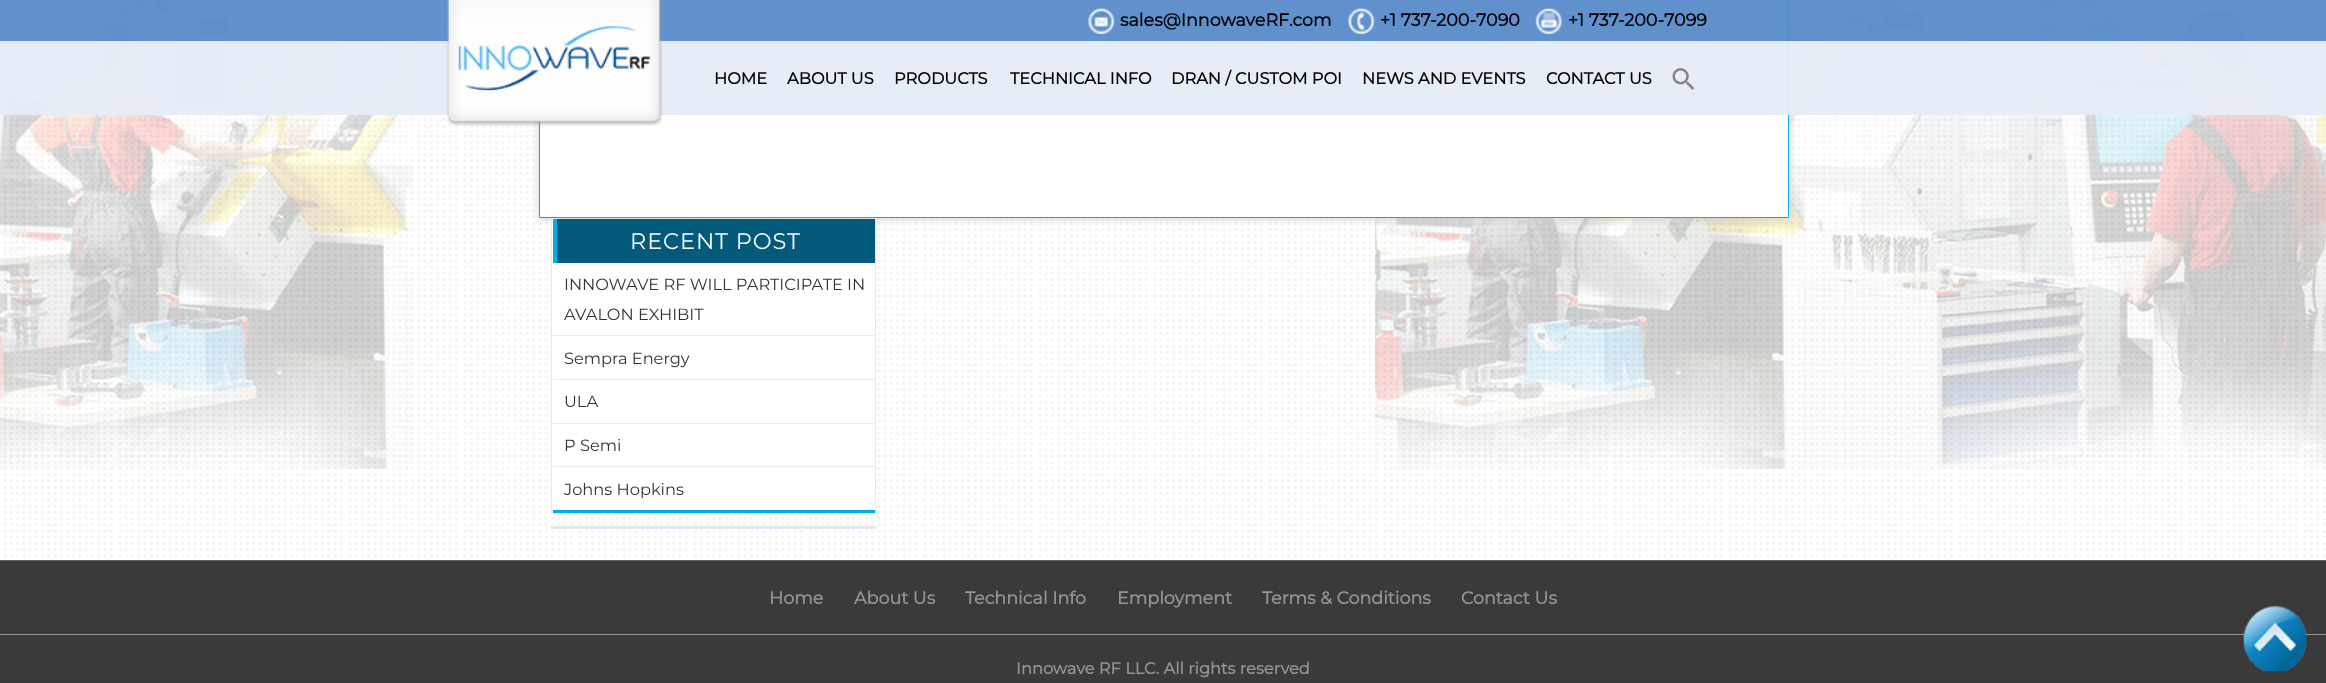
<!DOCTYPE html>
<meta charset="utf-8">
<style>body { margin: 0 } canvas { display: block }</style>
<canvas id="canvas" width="2326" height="683"></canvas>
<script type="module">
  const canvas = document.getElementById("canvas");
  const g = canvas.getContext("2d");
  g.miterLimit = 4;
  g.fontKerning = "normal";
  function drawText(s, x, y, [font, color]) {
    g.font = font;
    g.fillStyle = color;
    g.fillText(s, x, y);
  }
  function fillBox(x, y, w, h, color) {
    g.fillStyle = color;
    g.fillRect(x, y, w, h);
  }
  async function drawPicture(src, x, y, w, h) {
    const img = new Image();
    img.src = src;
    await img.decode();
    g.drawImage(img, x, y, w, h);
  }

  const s1 = ["bold 17.5px Montserrat", "#000000"];
  const s2 = ["bold 16.25px Montserrat", "#000000"];
  const s3 = ["100 22.5px Montserrat", "#FFFFFF"];
  const s4 = ["100 16.25px Montserrat", "#333333"];
  const s5 = ["bold 17.5px Montserrat", "#959494"];
  const s6 = ["bold 16.25px Montserrat", "#959494"];

  fillBox(0, 0, 2326, 683, "#FFFFFF");
  await drawPicture("pic1.png", 4, 0, 2321, 560);
  await drawPicture("pic7.png", 0, 0, 2326, 469);
  g.fillStyle = "#CECECE";
  g.filter = "blur(4px)";
  g.beginPath();
  g.rect(539, -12, 1250, 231);
  g.fill();
  g.filter = "none";
  g.fillStyle = "#FFFFFF";
  g.beginPath();
  g.rect(539.5, -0.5, 1249, 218);
  g.fill();
  g.strokeStyle = "#00ADEF";
  g.stroke();
  fillBox(0, 0, 2326, 43, "rgba(83, 136, 201, 0.92)");
  await drawPicture("pic2.png", 1088, 8, 27, 26);
  drawText("sales@InnowaveRF.com", 1120, 26, s1);
  await drawPicture("pic3.png", 1348, 8, 27, 26);
  drawText("+1 737-200-7090", 1380, 26, s1);
  await drawPicture("pic4.png", 1535, 8, 27, 26);
  drawText("+1 737-200-7099", 1568, 26, s1);
  g.beginPath();
  g.roundRect(654.5, 63.5, 1018, 36, 2);
  g.strokeStyle = "#EBEBEB";
  g.stroke();
  fillBox(0, 41, 2326, 74, "rgba(185, 205, 231, 0.88)");
  fillBox(0, 41, 2326, 74, "rgba(255, 255, 255, 0.6)");
  await drawPicture("pic5.png", 446, 0, 217, 126);
  drawText("HOME", 714, 84, s2);
  drawText("ABOUT US", 787, 84, s2);
  drawText("PRODUCTS", 894, 84, s2);
  drawText("TECHNICAL INFO", 1010, 84, s2);
  drawText("DRAN / CUSTOM POI", 1171, 84, s2);
  drawText("NEWS AND EVENTS", 1362, 84, s2);
  drawText("CONTACT US", 1546, 84, s2);
  await drawPicture("pic6.png", 1672, 68, 23, 22);
  g.fillStyle = "#FFFFFF";
  g.beginPath();
  g.rect(551.5, 218.5, 324, 295);
  g.fill();
  g.strokeStyle = "#E5E7E8";
  g.stroke();
  fillBox(557, 219, 318, 44, "#045A7B");
  fillBox(553, 219, 4, 44, "#00ADEF");
  g.letterSpacing = "0.9px";
  drawText("RECENT POST", 630, 249, s3);
  fillBox(553, 510, 322, 3, "#00ADEF");
  g.letterSpacing = "0px";
  drawText("INNOWAVE RF WILL PARTICIPATE IN", 564, 290, s4);
  drawText("AVALON EXHIBIT", 564, 320, s4);
  fillBox(553, 335, 322, 1, "#EBEBEB");
  drawText("Sempra Energy", 564, 364, s4);
  fillBox(553, 379, 322, 1, "#EBEBEB");
  drawText("ULA", 564, 407, s4);
  fillBox(553, 423, 322, 1, "#EBEBEB");
  drawText("P Semi", 564, 451, s4);
  fillBox(553, 466, 322, 1, "#EBEBEB");
  drawText("Johns Hopkins", 564, 495, s4);
  fillBox(551, 526, 325, 3, "#E5E7E8");
  fillBox(0, 561, 2326, 122, "#3A3A3A");
  fillBox(0, 560, 2326, 1, "#646262");
  fillBox(0, 634, 2326, 1, "#959494");
  drawText("Home", 769, 604, s5);
  drawText("About Us", 854, 604, s5);
  drawText("Technical Info", 965, 604, s5);
  drawText("Employment", 1117, 604, s5);
  drawText("Terms & Conditions", 1262, 604, s5);
  drawText("Contact Us", 1461, 604, s5);
  drawText("Innowave RF LLC. All rights reserved", 1016, 674, s6);
  await drawPicture("pic8.png", 2243, 606, 64, 66);
</script>
